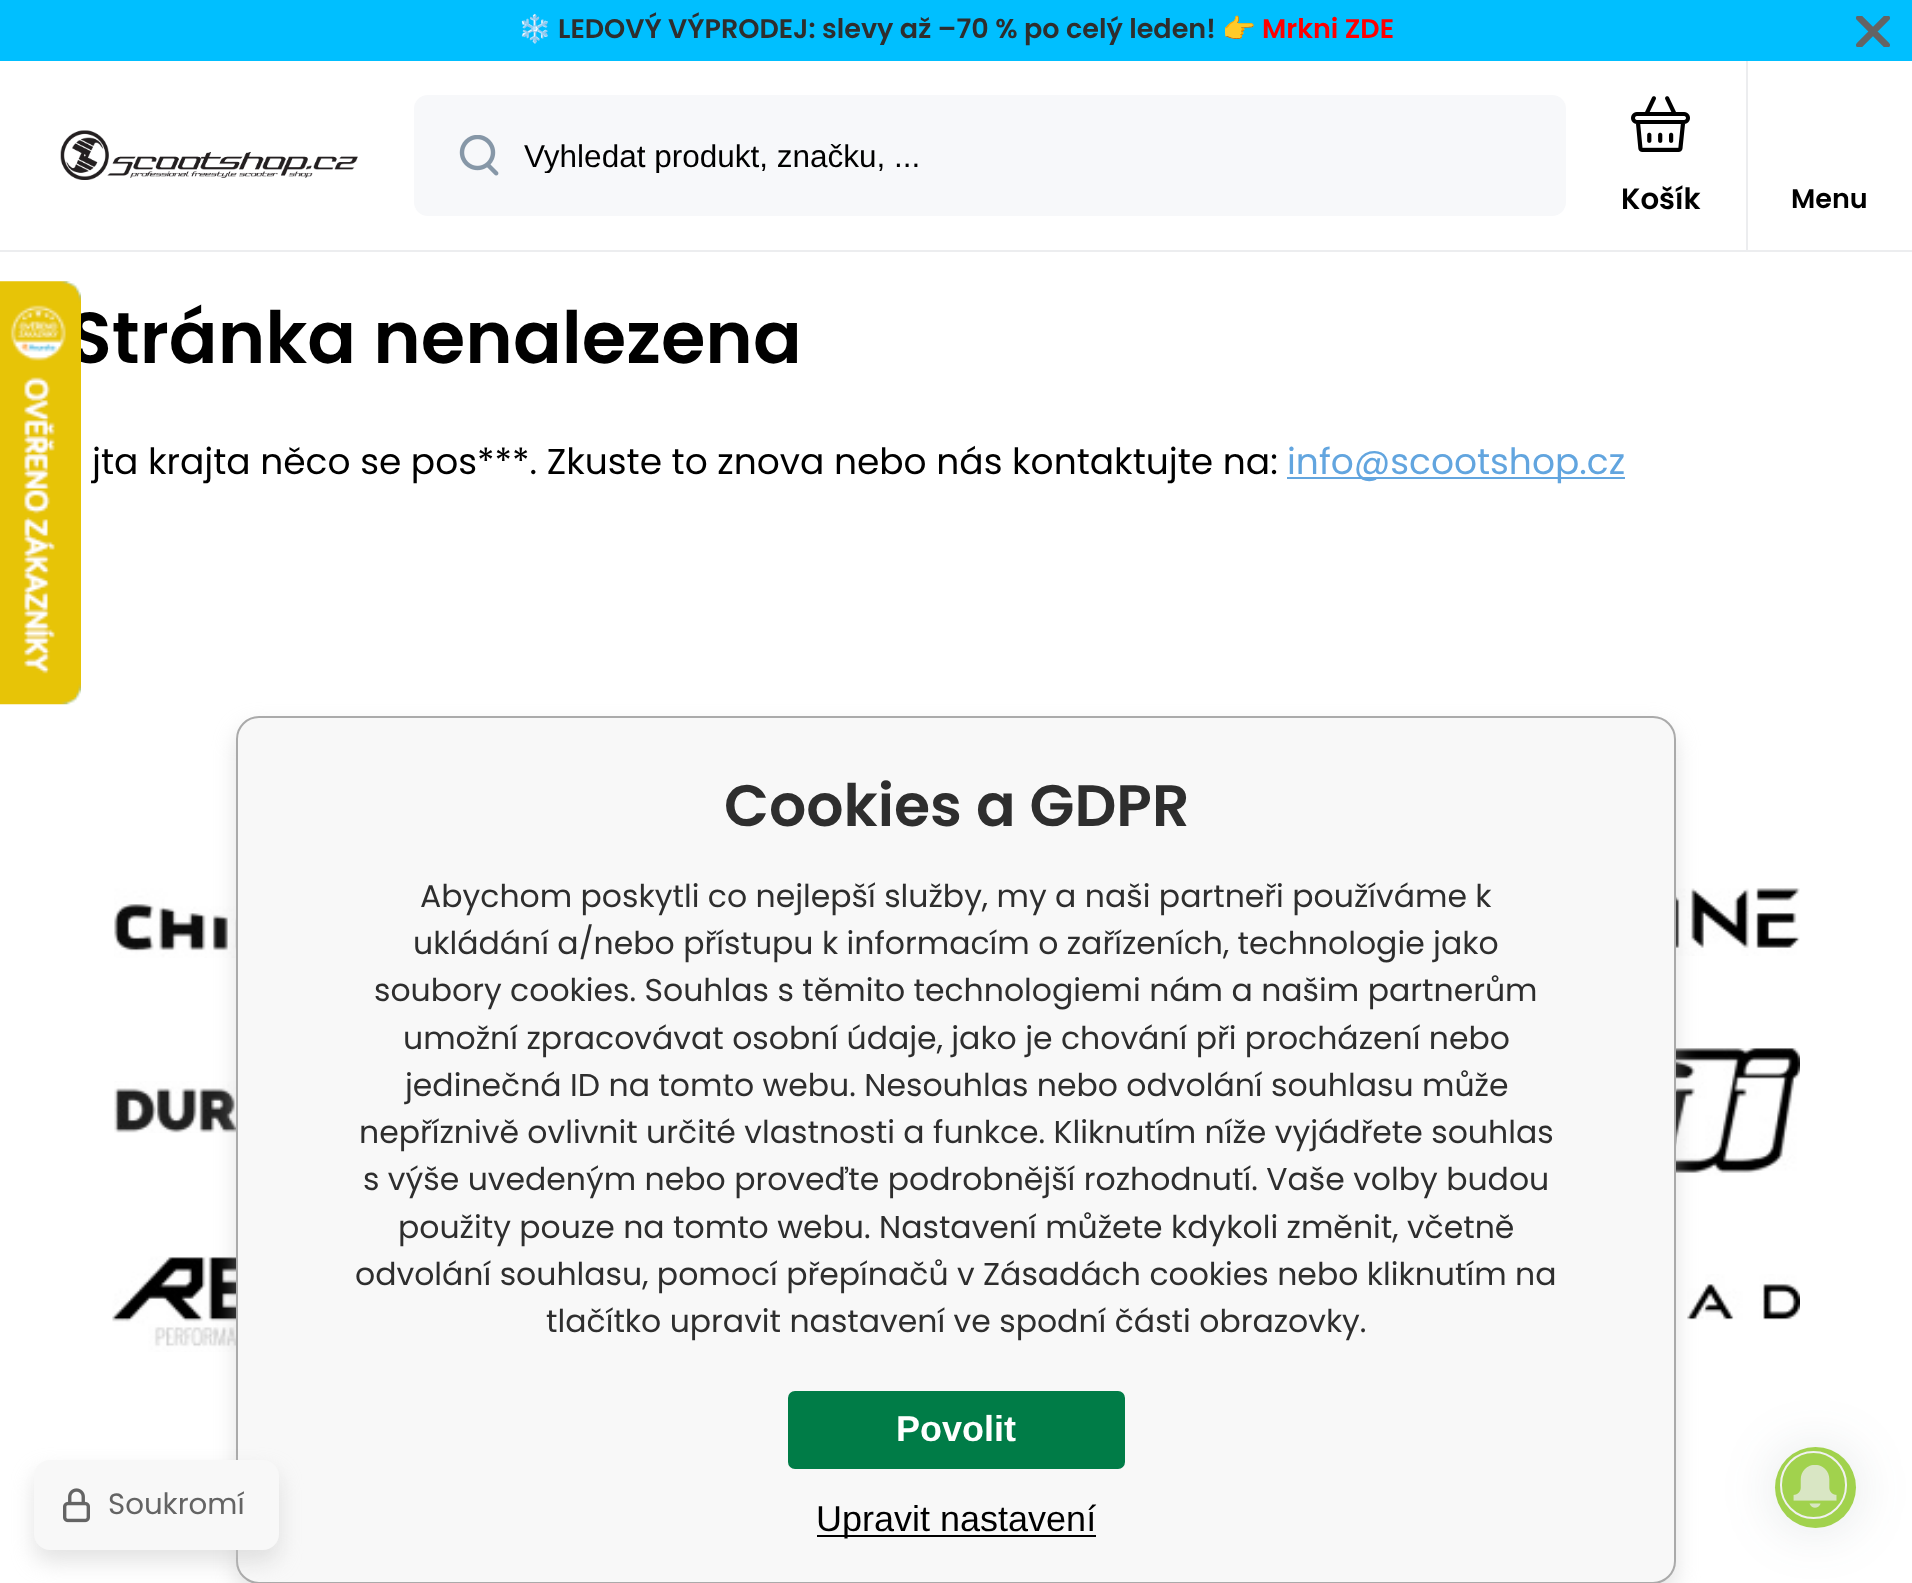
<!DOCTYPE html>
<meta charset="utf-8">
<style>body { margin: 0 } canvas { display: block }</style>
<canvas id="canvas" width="1912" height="1583"></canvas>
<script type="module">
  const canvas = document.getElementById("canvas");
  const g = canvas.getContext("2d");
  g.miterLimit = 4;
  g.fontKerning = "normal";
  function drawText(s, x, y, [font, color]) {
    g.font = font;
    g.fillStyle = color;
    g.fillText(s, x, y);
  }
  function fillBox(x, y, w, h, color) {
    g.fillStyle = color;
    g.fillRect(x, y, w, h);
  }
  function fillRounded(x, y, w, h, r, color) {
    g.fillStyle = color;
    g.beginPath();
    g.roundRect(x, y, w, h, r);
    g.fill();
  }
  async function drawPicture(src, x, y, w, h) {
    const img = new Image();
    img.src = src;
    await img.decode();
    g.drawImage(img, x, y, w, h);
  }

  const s1 = ["600 72px Poppins", "#000000"];
  const s2 = ["bold 27px Noto Color Emoji", "#2E2E2E"];
  const s3 = ["600 27px Poppins", "#2E2E2E"];
  const s4 = ["600 27px Poppins", "#FF0000"];
  const s5 = ["31.5px Liberation Sans", "#000000"];
  const s6 = ["600 29.25px Poppins", "#000000"];
  const s7 = ["600 27px Poppins", "#000000"];
  const s8 = ["36px Poppins", "#000000"];
  const s9 = ["36px Poppins", "#62A5DF"];
  const s10 = ["29.25px Poppins", "#646464"];
  const s11 = ["600 58.5px Poppins", "#2E2E2E"];
  const s12 = ["31.5px Poppins", "#2E2E2E"];
  const s13 = ["bold 36px Liberation Sans", "#FFFFFF"];
  const s14 = ["36px Liberation Sans", "#000000"];

  fillBox(0, 0, 1912, 1583, "#FFFFFF");
  drawText("Stránka nenalezena", 68, 363, s1);
  await drawPicture("pic1.png", 0, 281, 81, 424);
  fillBox(0, 0, 1912, 61, "#00BFFF");
  drawText("❄️", 518, 38, s2);
  drawText("LEDOVÝ VÝPRODEJ: slevy až –70 % po celý leden!", 558, 38, s3);
  drawText("👉", 1222, 38, s2);
  drawText("Mrkni ZDE", 1262, 38, s4);
  g.save();
  g.beginPath();
  g.rect(1856, 16, 34, 31);
  g.clip();
  g.beginPath();
  g.moveTo(1859.5, 18);
  g.lineTo(1886.5, 45);
  g.moveTo(1859.5, 45);
  g.lineTo(1886.5, 18);
  g.strokeStyle = "#646464";
  g.lineWidth = 6.7;
  g.lineCap = "round";
  g.stroke();
  g.restore();
  fillBox(0, 250, 1912, 2, "#ECEDEF");
  await drawPicture("pic2.png", 60, 130, 298, 50);
  fillRounded(414, 95, 1152, 121, 14, "#F7F8FA");
  await drawPicture("pic3.png", 459, 135, 40, 41);
  g.save();
  g.beginPath();
  g.rect(524, 137, 795, 36);
  g.clip();
  drawText("Vyhledat produkt, značku, ...", 524, 167, s5);
  g.restore();
  await drawPicture("pic4.png", 1631, 96, 59, 56);
  drawText("Košík", 1621, 209, s6);
  fillBox(1746, 61, 2, 189, "#ECEDEF");
  drawText("Menu", 1791, 208, s7);
  drawText("jta krajta něco se pos***. Zkuste to znova nebo nás kontaktujte na:", 92, 474, s8);
  fillBox(1287, 477, 338, 2, "#62A5DF");
  drawText("info@scootshop.cz", 1287, 474, s9);
  await drawPicture("pic5.png", 114, 888, 122, 70);
  await drawPicture("pic6.png", 1676, 888, 124, 68);
  await drawPicture("pic7.png", 114, 1081, 122, 52);
  await drawPicture("pic8.png", 1676, 1048, 124, 128);
  await drawPicture("pic9.png", 112, 1256, 124, 96);
  await drawPicture("pic10.png", 1676, 1274, 124, 46);
  g.fillStyle = "rgba(200, 200, 200, 0.5)";
  g.filter = "blur(11px)";
  g.beginPath();
  g.roundRect(236, 727, 1440, 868, 23);
  g.fill();
  g.filter = "none";
  g.fillStyle = "#F8F8F8";
  g.beginPath();
  g.roundRect(237, 717, 1438, 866, 22);
  g.fill();
  g.strokeStyle = "#AAAAAA";
  g.lineWidth = 2;
  g.stroke();
  g.fillStyle = "rgba(200, 200, 200, 0.5)";
  g.filter = "blur(11px)";
  g.beginPath();
  g.roundRect(34, 1472, 245, 90, 16);
  g.fill();
  g.filter = "none";
  fillRounded(34, 1460, 245, 90, 16, "#F8F8F8");
  await drawPicture("pic11.png", 63, 1488, 27, 35);
  drawText("Soukromí", 108, 1514, s10);
  drawText("Cookies a GDPR", 724, 826, s11);
  drawText("Abychom poskytli co nejlepší služby, my a naši partneři používáme k", 420, 907, s12);
  drawText("ukládání a/nebo přístupu k informacím o zařízeních, technologie jako", 413, 954, s12);
  drawText("soubory cookies. Souhlas s těmito technologiemi nám a našim partnerům", 374, 1001, s12);
  drawText("umožní zpracovávat osobní údaje, jako je chování při procházení nebo", 403, 1049, s12);
  drawText("jedinečná ID na tomto webu. Nesouhlas nebo odvolání souhlasu může", 405, 1096, s12);
  drawText("nepříznivě ovlivnit určité vlastnosti a funkce. Kliknutím níže vyjádřete souhlas", 359, 1143, s12);
  drawText("s výše uvedeným nebo proveďte podrobnější rozhodnutí. Vaše volby budou", 363, 1190, s12);
  drawText("použity pouze na tomto webu. Nastavení můžete kdykoli změnit, včetně", 398, 1238, s12);
  drawText("odvolání souhlasu, pomocí přepínačů v Zásadách cookies nebo kliknutím na", 355, 1285, s12);
  drawText("tlačítko upravit nastavení ve spodní části obrazovky.", 546, 1332, s12);
  g.fillStyle = "#007C47";
  g.beginPath();
  g.roundRect(789, 1392, 335, 76, 6);
  g.fill();
  g.strokeStyle = "#007C47";
  g.stroke();
  drawText("Povolit", 896, 1441, s13);
  fillBox(817, 1535, 279, 2, "#000000");
  drawText("Upravit nastavení", 816, 1531, s14);
  g.fillStyle = "rgba(68, 84, 97, 0.15)";
  g.filter = "blur(27px)";
  g.beginPath();
  g.roundRect(1775, 1449, 81, 81, 40.5);
  g.fill();
  g.filter = "none";
  g.fillStyle = "#A1D24D";
  g.beginPath();
  g.arc(1815.5, 1487.5, 40.5, 0, Math.PI * 2);
  g.fill();
  g.beginPath();
  g.roundRect(1781, 1452, 65, 66, 32.5);
  g.strokeStyle = "#F1F1F1";
  g.stroke();
  await drawPicture("pic12.png", 1793, 1465, 44, 43);
</script>
